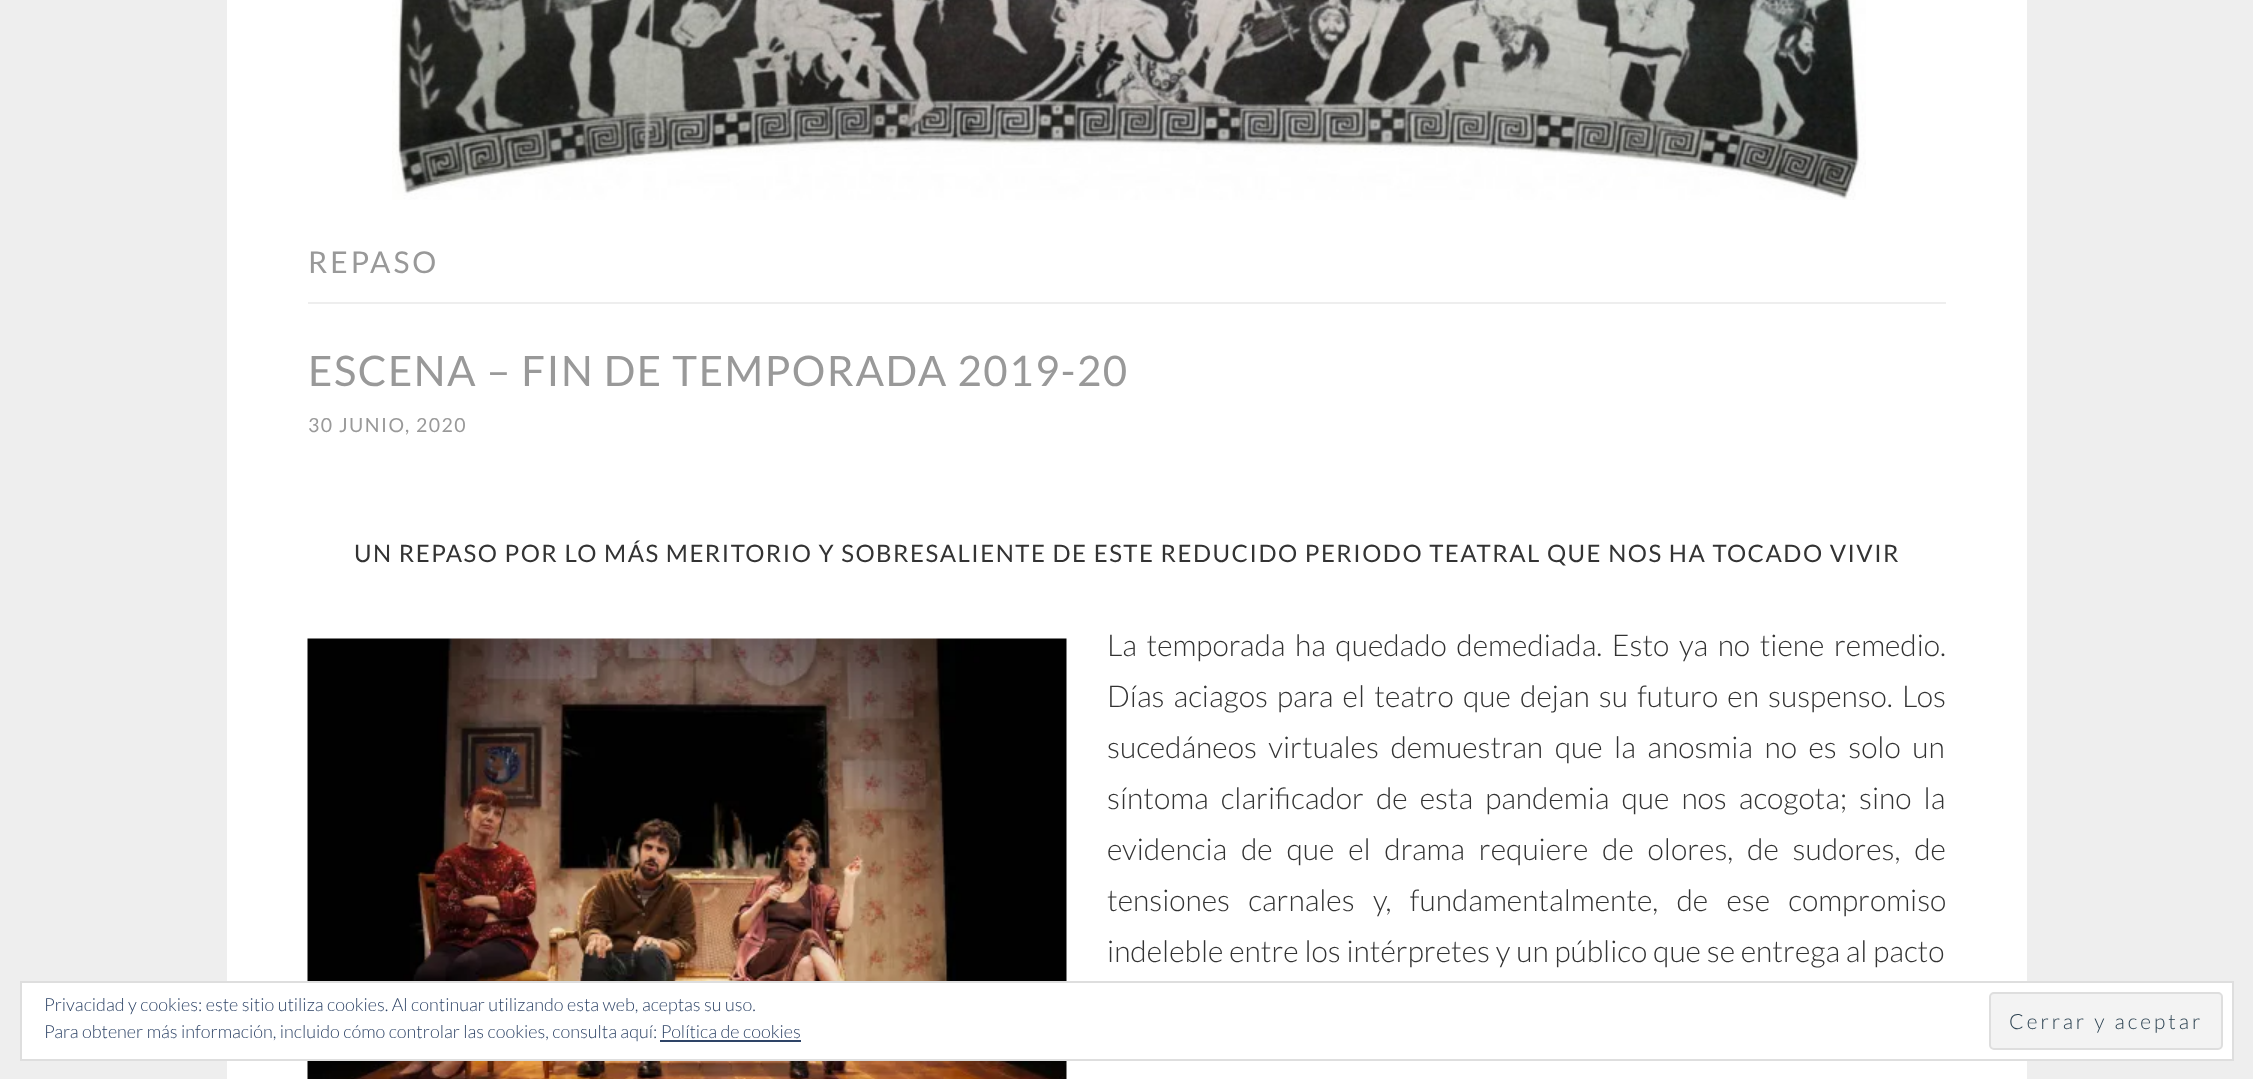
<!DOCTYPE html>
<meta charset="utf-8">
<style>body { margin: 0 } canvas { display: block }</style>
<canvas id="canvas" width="2253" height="1079"></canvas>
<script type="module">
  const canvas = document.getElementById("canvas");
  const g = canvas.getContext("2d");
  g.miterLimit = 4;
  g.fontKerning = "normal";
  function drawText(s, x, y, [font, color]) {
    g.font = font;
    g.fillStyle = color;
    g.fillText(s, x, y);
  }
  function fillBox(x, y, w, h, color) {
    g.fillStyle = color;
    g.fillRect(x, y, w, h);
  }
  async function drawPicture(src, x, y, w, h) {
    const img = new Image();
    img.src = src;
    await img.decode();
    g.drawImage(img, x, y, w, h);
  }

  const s1 = ["30px Lato", "#999999"];
  const s2 = ["42px Lato", "#999999"];
  const s3 = ["19.5px Lato", "#999999"];
  const s4 = ["24px Lato", "#333333"];
  const s5 = ["300 30px Lato", "#333333"];
  const s6 = ["300 18px Lato", "#2E4467"];
  const s7 = ["300 21px Lato", "#2E4453"];

  fillBox(0, 0, 2253, 1079, "#EEEEEE");
  fillBox(227, 0, 1800, 1079, "#FFFFFF");
  await drawPicture("pic1.png", 392, 0, 1474, 200);
  fillBox(308, 302, 1638, 2, "#EEEEEE");
  g.letterSpacing = "3px";
  drawText("REPASO", 308, 273, s1);
  g.letterSpacing = "1.5px";
  drawText("ESCENA – FIN DE TEMPORADA 2019-20", 308, 386, s2);
  drawText("30 JUNIO, 2020", 308, 432, s3);
  drawText("UN REPASO POR LO MÁS MERITORIO Y SOBRESALIENTE DE ESTE REDUCIDO PERIODO TEATRAL QUE NOS HA TOCADO VIVIR", 354, 562, s4);
  await drawPicture("pic2.png", 307, 638, 760, 441);
  g.letterSpacing = "0px";
  g.wordSpacing = "3.75px";
  drawText("La temporada ha quedado demediada. Esto ya no tiene remedio.", 1107, 656, s5);
  g.wordSpacing = "3.4px";
  drawText("Días aciagos para el teatro que dejan su futuro en suspenso. Los", 1107, 707, s5);
  g.wordSpacing = "5.75px";
  drawText("sucedáneos virtuales demuestran que la anosmia no es solo un", 1107, 758, s5);
  g.wordSpacing = "6.25px";
  drawText("síntoma clarificador de esta pandemia que nos acogota; sino la", 1107, 809, s5);
  g.wordSpacing = "8px";
  drawText("evidencia de que el drama requiere de olores, de sudores, de", 1107, 860, s5);
  g.wordSpacing = "12.5px";
  drawText("tensiones carnales y, fundamentalmente, de ese compromiso", 1107, 911, s5);
  g.wordSpacing = "0px";
  drawText("indeleble entre los intérpretes y un público que se entrega al pacto", 1107, 962, s5);
  g.fillStyle = "#FFFFFF";
  g.beginPath();
  g.rect(21, 982, 2212, 78);
  g.fill();
  g.strokeStyle = "#DEDEDE";
  g.lineWidth = 2;
  g.stroke();
  drawText("Privacidad y cookies: este sitio utiliza cookies. Al continuar utilizando esta web, aceptas su uso.", 44, 1011, s6);
  drawText("Para obtener más información, incluido cómo controlar las cookies, consulta aquí: Política de cookies", 44, 1038, s6);
  g.fillStyle = "#F3F3F3";
  g.beginPath();
  g.roundRect(1990, 993, 232, 56, 4);
  g.fill();
  g.stroke();
  g.letterSpacing = "3px";
  drawText("Cerrar y aceptar", 2009, 1029, s7);
  fillBox(660, 1040, 141, 2, "#2E4467");
</script>
